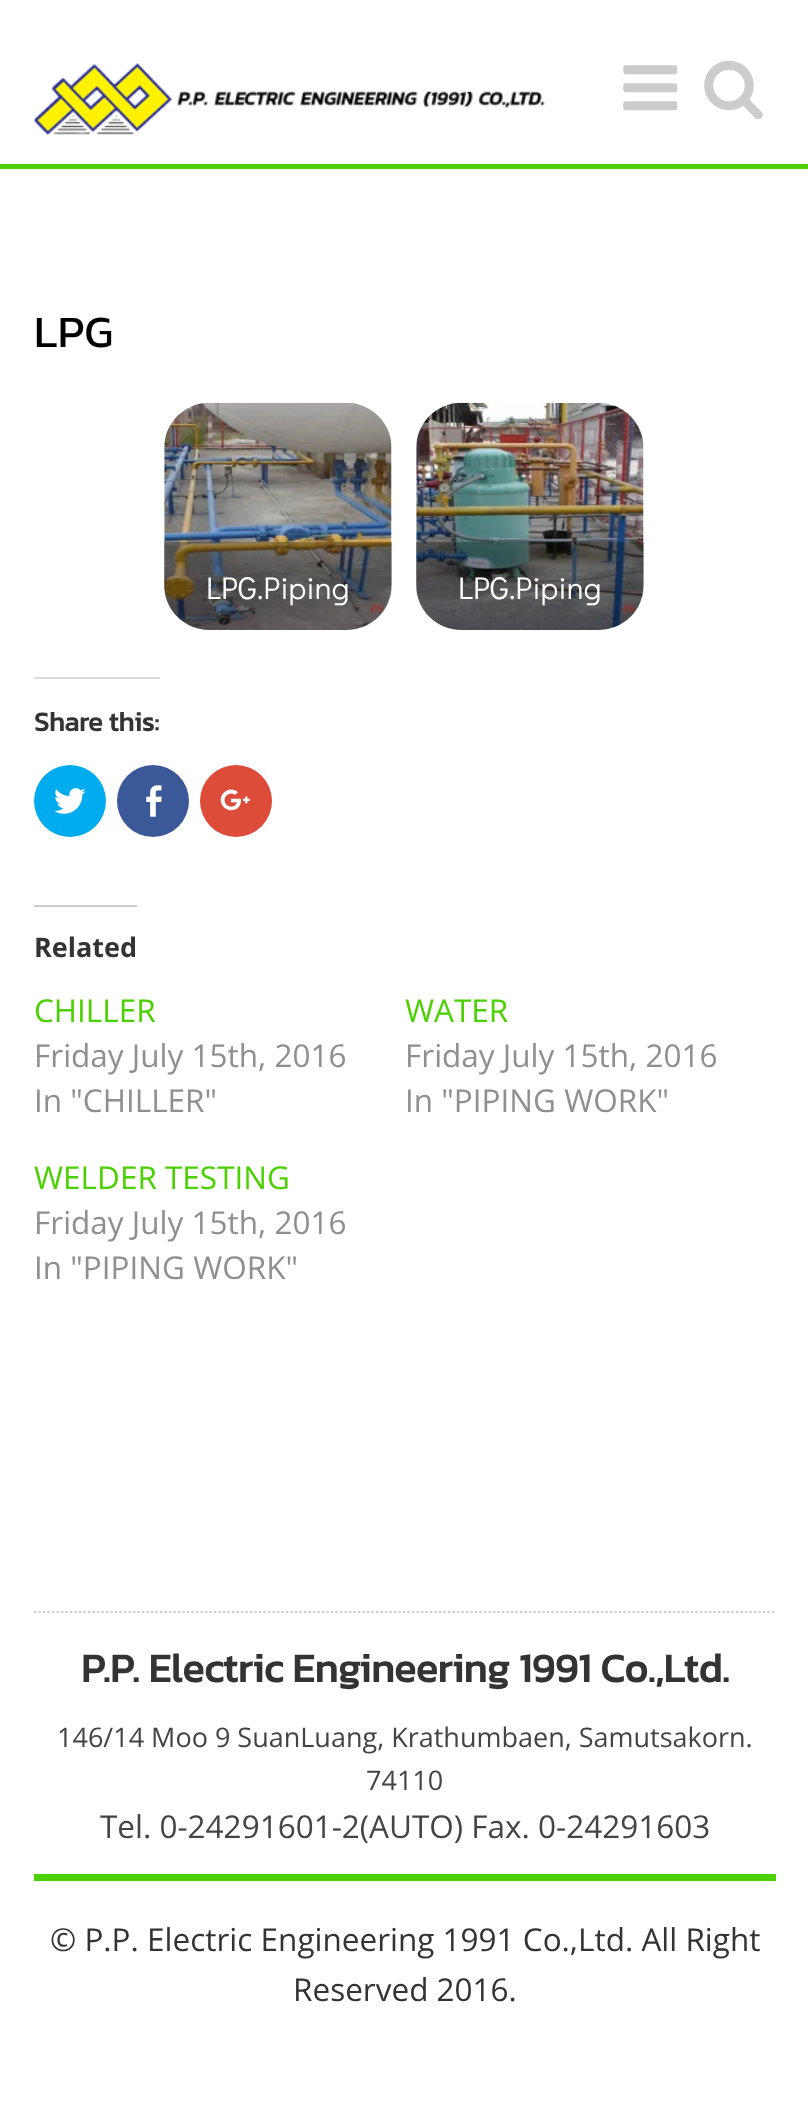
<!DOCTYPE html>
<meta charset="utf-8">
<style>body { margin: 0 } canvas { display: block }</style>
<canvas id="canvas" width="808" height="2128"></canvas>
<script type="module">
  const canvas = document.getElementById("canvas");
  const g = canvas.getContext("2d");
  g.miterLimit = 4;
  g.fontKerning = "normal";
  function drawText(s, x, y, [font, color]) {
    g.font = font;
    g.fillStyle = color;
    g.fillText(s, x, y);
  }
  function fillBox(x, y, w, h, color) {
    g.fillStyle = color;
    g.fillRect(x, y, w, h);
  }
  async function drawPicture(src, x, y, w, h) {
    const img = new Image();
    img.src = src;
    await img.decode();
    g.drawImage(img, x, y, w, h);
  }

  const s1 = ["45px Kanit", "#000000"];
  const s2 = ["31.5px Didact Gothic", "#FFFFFF"];
  const s3 = ["bold 27px Kanit", "#333333"];
  const s4 = ["bold 27px Open Sans", "#333333"];
  const s5 = ["31.5px Open Sans", "#4BD101"];
  const s6 = ["31.5px Open Sans", "#8F8F8F"];
  const s7 = ["bold 40.5px Kanit", "#333333"];
  const s8 = ["27px Open Sans", "#444444"];
  const s9 = ["31.5px Open Sans", "#444444"];
  const s10 = ["31.5px Open Sans", "#333333"];

  fillBox(0, 0, 808, 2128, "#FFFFFF");
  fillBox(0, 164, 808, 5, "#4BD101");
  await drawPicture("pic1.png", 33, 63, 512, 72);
  await drawPicture("pic2.png", 623, 65, 55, 46);
  await drawPicture("pic3.png", 704, 60, 59, 60);
  drawText("LPG", 34, 347, s1);
  await drawPicture("pic4.png", 164, 402, 228, 228);
  g.fillStyle = "rgba(0, 0, 0, 0.3)";
  g.beginPath();
  g.roundRect(164, 542, 228, 88, [0, 0, 45, 45]);
  g.fill();
  drawText("LPG.Piping", 206, 599, s2);
  await drawPicture("pic5.png", 416, 402, 228, 228);
  g.fillStyle = "rgba(0, 0, 0, 0.3)";
  g.beginPath();
  g.roundRect(416, 542, 228, 88, [0, 0, 45, 45]);
  g.fill();
  drawText("LPG.Piping", 458, 599, s2);
  fillBox(34, 677, 126, 2, "#DDDDDD");
  drawText("Share this:", 34, 731, s3);
  g.fillStyle = "#00ACEE";
  g.beginPath();
  g.arc(70, 801, 36, 0, Math.PI * 2);
  g.fill();
  await drawPicture("pic6.png", 54, 788, 32, 26);
  g.fillStyle = "#3B5998";
  g.beginPath();
  g.arc(153, 801, 36, 0, Math.PI * 2);
  g.fill();
  await drawPicture("pic7.png", 146, 785, 16, 32);
  g.fillStyle = "#DD4B39";
  g.beginPath();
  g.arc(236, 801, 36, 0, Math.PI * 2);
  g.fill();
  await drawPicture("pic8.png", 220, 789, 30, 22);
  fillBox(34, 905, 103, 2, "#CCCCCC");
  drawText("Related", 34, 957, s4);
  drawText("CHILLER", 34, 1022, s5);
  drawText("Friday July 15th, 2016", 34, 1067, s6);
  drawText("In \"CHILLER\"", 34, 1112, s6);
  drawText("WATER", 405, 1022, s5);
  drawText("Friday July 15th, 2016", 405, 1067, s6);
  drawText("In \"PIPING WORK\"", 405, 1112, s6);
  drawText("WELDER TESTING", 34, 1189, s5);
  drawText("Friday July 15th, 2016", 34, 1234, s6);
  drawText("In \"PIPING WORK\"", 34, 1279, s6);
  g.beginPath();
  g.moveTo(34, 1612);
  g.lineTo(776, 1612);
  g.strokeStyle = "#CCCCCC";
  g.lineWidth = 2.2;
  g.setLineDash([2.25, 2.25]);
  g.stroke();
  drawText("P.P. Electric Engineering 1991 Co.,Ltd.", 81, 1682, s7);
  drawText("146/14 Moo 9 SuanLuang, Krathumbaen, Samutsakorn.", 57, 1747, s8);
  drawText("74110", 366, 1790, s8);
  drawText("Tel. 0-24291601-2(AUTO) Fax. 0-24291603", 100, 1838, s9);
  fillBox(34, 1874, 742, 7, "#4BD101");
  drawText("© P.P. Electric Engineering 1991 Co.,Ltd. All Right", 50, 1951, s10);
  drawText("Reserved 2016.", 293, 2001, s10);
</script>
